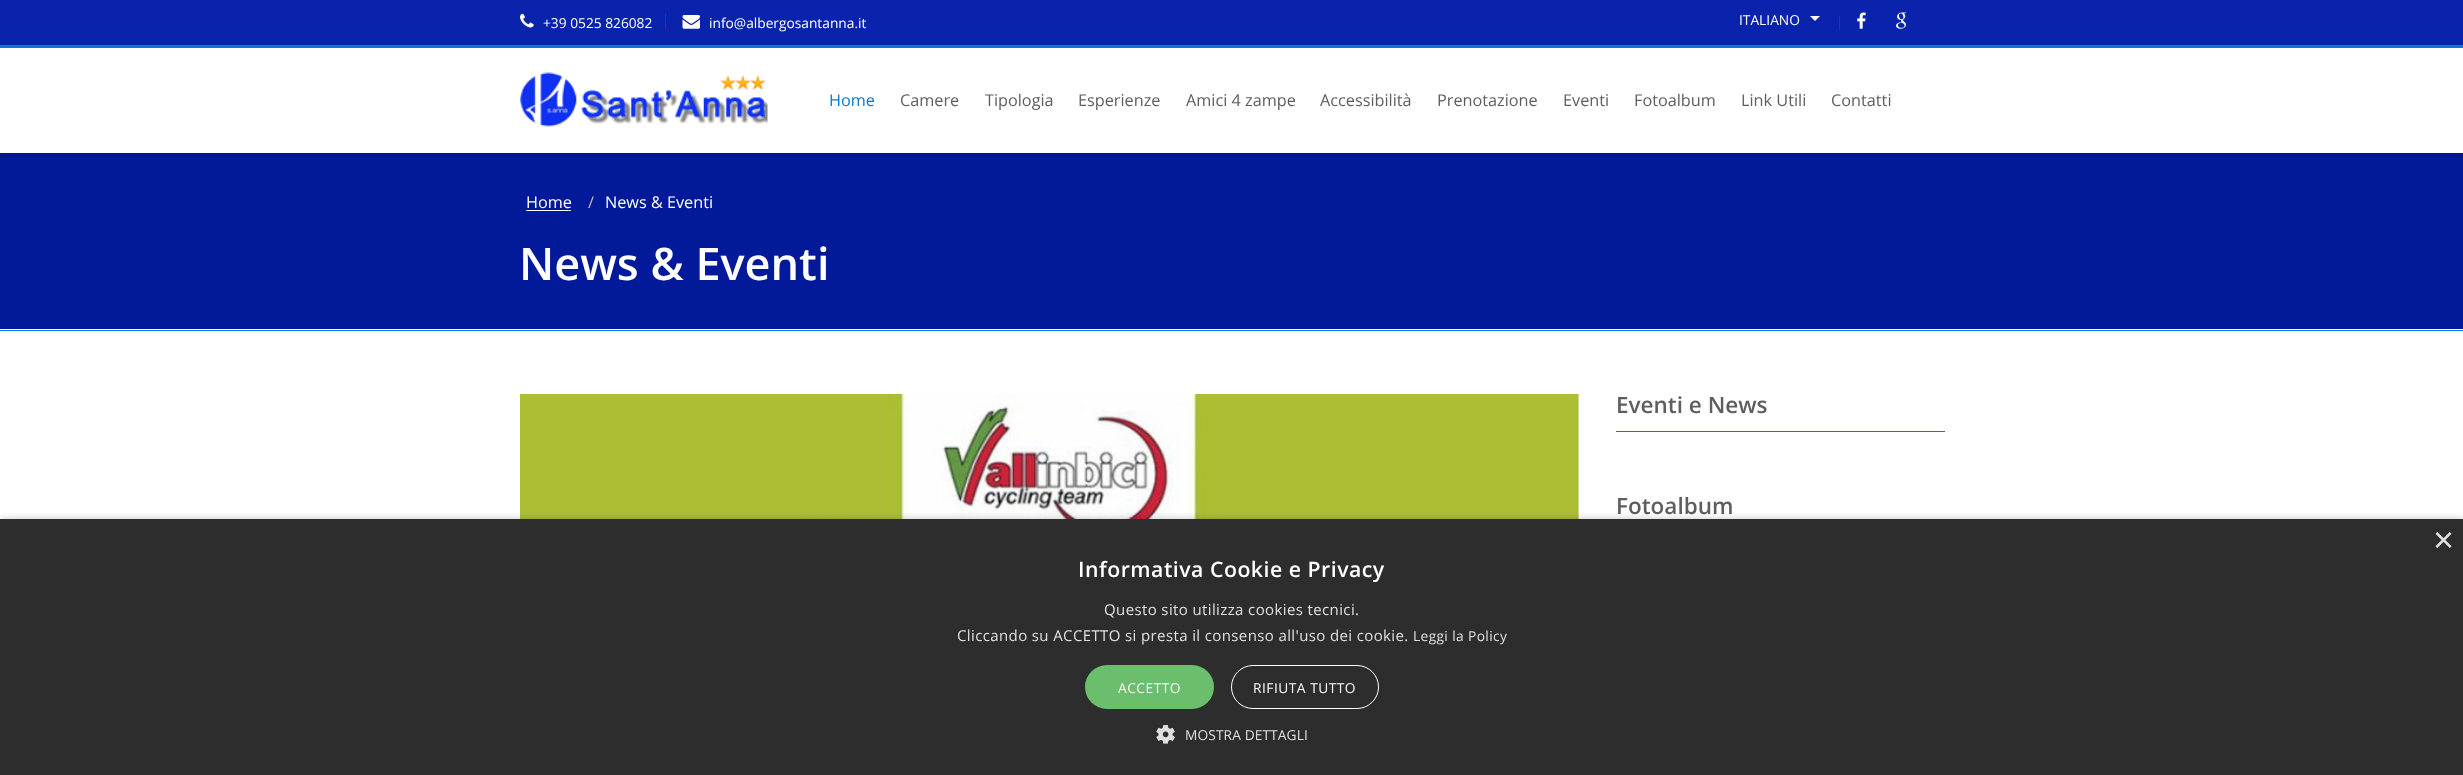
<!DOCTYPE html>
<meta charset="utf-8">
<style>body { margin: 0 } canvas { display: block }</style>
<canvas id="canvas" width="2463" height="775"></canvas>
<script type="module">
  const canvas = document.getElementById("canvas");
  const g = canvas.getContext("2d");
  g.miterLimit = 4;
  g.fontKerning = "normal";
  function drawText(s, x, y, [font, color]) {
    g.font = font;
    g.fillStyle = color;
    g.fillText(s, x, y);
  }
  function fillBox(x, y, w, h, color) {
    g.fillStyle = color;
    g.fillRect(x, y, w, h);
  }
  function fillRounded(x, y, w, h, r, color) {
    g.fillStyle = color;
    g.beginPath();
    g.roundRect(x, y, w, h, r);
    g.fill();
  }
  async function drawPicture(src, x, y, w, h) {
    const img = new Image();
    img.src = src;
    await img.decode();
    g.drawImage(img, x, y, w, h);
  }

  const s1 = ["13.75px Open Sans", "#FFFFFF"];
  const s2 = ["16.25px Open Sans", "#057AD4"];
  const s3 = ["16.25px Open Sans", "#5E5E5E"];
  const s4 = ["16.25px Open Sans", "#FFFFFF"];
  const s5 = ["16.25px Open Sans", "#BDBDBD"];
  const s6 = ["600 45px Open Sans", "#FFFFFF"];
  const s7 = ["600 22.5px Open Sans", "#5E5E5E"];
  const s8 = ["36px Liberation Sans", "#E0E0E0"];
  const s9 = ["600 21.25px Open Sans", "#FFFFFF"];
  const s10 = ["15px Open Sans", "#E0E0E0"];
  const s11 = ["13.75px Open Sans", "#E0E0E0"];

  fillBox(0, 0, 2463, 775, "#FFFFFF");
  fillBox(0, 0, 2463, 45, "#0A23AD");
  fillBox(665, 13, 1, 17, "#3C3C3C");
  await drawPicture("pic1.png", 520, 13, 14, 15);
  drawText("+39 0525 826082", 543, 28, s1);
  await drawPicture("pic2.png", 682, 15, 18, 14);
  drawText("info@albergosantanna.it", 709, 28, s1);
  fillBox(1839, 16, 1, 15, "#3C3C3C");
  drawText("ITALIANO", 1739, 25, s1);
  g.beginPath();
  g.moveTo(1810, 16);
  g.lineTo(1820, 16);
  g.lineTo(1815, 21);
  g.closePath();
  g.fill();
  await drawPicture("pic3.png", 1857, 12, 9, 17);
  await drawPicture("pic4.png", 1896, 12, 11, 17);
  fillBox(0, 45, 2463, 3, "#057AD4");
  fillBox(0, 153, 2463, 176, "#021999");
  g.fillStyle = "rgba(0, 0, 0, 0.1)";
  g.filter = "blur(2px)";
  g.beginPath();
  g.rect(0, 51, 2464, 105);
  g.fill();
  g.filter = "none";
  fillBox(0, 48, 2463, 105, "#FFFFFF");
  await drawPicture("pic5.png", 520, 72, 248, 56);
  drawText("Home", 829, 106, s2);
  drawText("Camere", 900, 106, s3);
  drawText("Tipologia", 985, 106, s3);
  drawText("Esperienze", 1078, 106, s3);
  drawText("Amici 4 zampe", 1186, 106, s3);
  drawText("Accessibilità", 1320, 106, s3);
  drawText("Prenotazione", 1437, 106, s3);
  drawText("Eventi", 1563, 106, s3);
  drawText("Fotoalbum", 1634, 106, s3);
  drawText("Link Utili", 1741, 106, s3);
  drawText("Contatti", 1831, 106, s3);
  fillBox(0, 330, 2463, 1, "#057AD4");
  drawText("Home", 526, 208, s4);
  fillBox(526, 210, 45, 1, "#FFFFFF");
  drawText("/", 588, 208, s5);
  drawText("News & Eventi", 605, 208, s4);
  drawText("News & Eventi", 519, 280, s6);
  await drawPicture("pic6.png", 520, 393, 1059, 126);
  fillBox(1616, 431, 329, 1, "#057AD4");
  drawText("Eventi e News", 1616, 413, s7);
  drawText("Fotoalbum", 1616, 514, s7);
  g.fillStyle = "rgba(0, 0, 0, 0.35)";
  g.filter = "blur(5px)";
  g.beginPath();
  g.rect(1, 521, 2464, 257);
  g.fill();
  g.filter = "none";
  fillBox(0, 519, 2463, 256, "#2D2D2D");
  drawText("×", 2433, 552, s8);
  g.letterSpacing = "0.5px";
  drawText("Informativa Cookie e Privacy", 1078, 577, s9);
  g.letterSpacing = "0.38px";
  drawText("Questo sito utilizza cookies tecnici.", 1104, 615, s10);
  drawText("Cliccando su ACCETTO si presta il consenso all'uso dei cookie.", 957, 641, s10);
  drawText("Leggi la Policy", 1413, 641, s11);
  fillRounded(1085, 665, 129, 44, 22, "#6BBE6B");
  g.letterSpacing = "0.5px";
  drawText("ACCETTO", 1118, 693, s1);
  g.beginPath();
  g.roundRect(1231.5, 665.5, 147, 43, 21.5);
  g.strokeStyle = "#FFFFFF";
  g.stroke();
  drawText("RIFIUTA TUTTO", 1253, 693, s1);
  await drawPicture("pic7.png", 1156, 725, 19, 19);
  g.letterSpacing = "0.1px";
  drawText("MOSTRA DETTAGLI", 1185, 740, s11);
</script>
